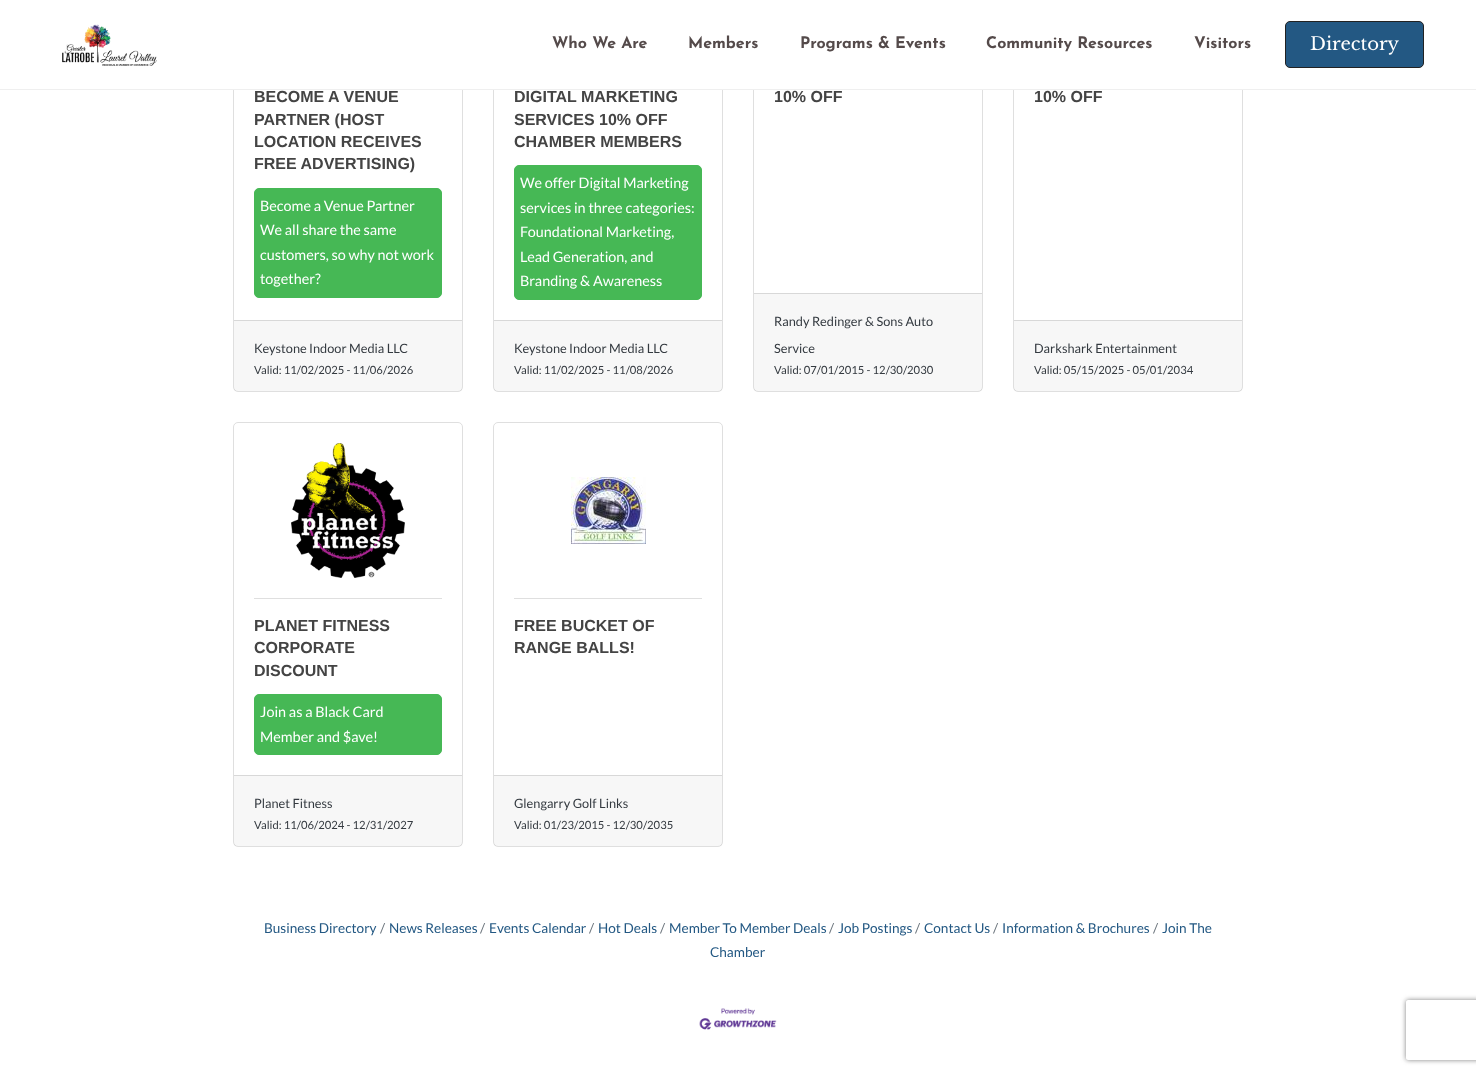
<!DOCTYPE html>
<meta charset="utf-8">
<style>body { margin: 0 } canvas { display: block }</style>
<canvas id="canvas" width="1476" height="1074"></canvas>
<script type="module">
  const canvas = document.getElementById("canvas");
  const g = canvas.getContext("2d");
  g.miterLimit = 4;
  g.fontKerning = "normal";
  function drawText(s, x, y, [font, color]) {
    g.font = font;
    g.fillStyle = color;
    g.fillText(s, x, y);
  }
  function fillBox(x, y, w, h, color) {
    g.fillStyle = color;
    g.fillRect(x, y, w, h);
  }
  async function drawPicture(src, x, y, w, h) {
    const img = new Image();
    img.src = src;
    await img.decode();
    g.drawImage(img, x, y, w, h);
  }

  const s1 = ["100 16px Josefin Sans", "#544A4A"];
  const s2 = ["18px Libre Baskerville", "#FFFFFF"];
  const s3 = ["bold 16px Liberation Sans", "#444444"];
  const s4 = ["14.4px Lato", "#FFFFFF"];
  const s5 = ["12.75px Lato", "#343A40"];
  const s6 = ["11.25px Lato", "#343A40"];
  const s7 = ["13.6px Lato", "#235883"];
  const s8 = ["13.6px Lato", "#6C757D"];

  fillBox(0, 0, 1476, 1074, "#FFFFFF");
  g.beginPath();
  g.roundRect(233.5, -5.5, 229, 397, 4.5);
  g.strokeStyle = "#DFDFDF";
  g.stroke();
  g.beginPath();
  g.roundRect(493.5, -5.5, 229, 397, 4.5);
  g.stroke();
  g.beginPath();
  g.roundRect(753.5, -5.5, 229, 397, 4.5);
  g.stroke();
  g.beginPath();
  g.roundRect(1013.5, -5.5, 229, 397, 4.5);
  g.stroke();
  fillBox(233, 0, 1010, 89, "#FFFFFF");
  fillBox(0, 89, 1476, 1, "#EFEFEF");
  await drawPicture("pic1.png", 62, 24, 95, 42);
  drawText("Who We Are", 552, 48, s1);
  drawText("Members", 688, 48, s1);
  drawText("Programs & Events", 800, 48, s1);
  drawText("Community Resources", 986, 48, s1);
  drawText("Visitors", 1194, 48, s1);
  g.fillStyle = "#235883";
  g.beginPath();
  g.roundRect(1285.5, 21.5, 138, 46, 4.5);
  g.fill();
  g.strokeStyle = "#222222";
  g.stroke();
  drawText("Directory", 1310, 50, s2);
  drawText("BECOME A VENUE", 254, 102, s3);
  drawText("PARTNER (HOST", 254, 125, s3);
  drawText("LOCATION RECEIVES", 254, 147, s3);
  drawText("FREE ADVERTISING)", 254, 169, s3);
  g.fillStyle = "#46B855";
  g.beginPath();
  g.roundRect(254.5, 188.5, 187, 109, 4.5);
  g.fill();
  g.strokeStyle = "#46B855";
  g.stroke();
  drawText("Become a Venue Partner", 260, 211, s4);
  drawText("We all share the same", 260, 235, s4);
  drawText("customers, so why not work", 260, 260, s4);
  drawText("together?", 260, 284, s4);
  fillBox(234, 321, 228, 70, "rgba(0, 0, 0, 0.03)");
  fillBox(234, 320, 228, 1, "#D8D8D8");
  drawText("Keystone Indoor Media LLC", 254, 353, s5);
  drawText("Valid: 11/02/2025 - 11/06/2026", 254, 374, s6);
  drawText("DIGITAL MARKETING", 514, 102, s3);
  drawText("SERVICES 10% OFF", 514, 125, s3);
  drawText("CHAMBER MEMBERS", 514, 147, s3);
  g.fillStyle = "#46B855";
  g.beginPath();
  g.roundRect(514.5, 165.5, 187, 134, 4.5);
  g.fill();
  g.stroke();
  drawText("We offer Digital Marketing", 520, 188, s4);
  drawText("services in three categories:", 520, 213, s4);
  drawText("Foundational Marketing,", 520, 237, s4);
  drawText("Lead Generation, and", 520, 262, s4);
  drawText("Branding & Awareness", 520, 286, s4);
  fillBox(494, 321, 228, 70, "rgba(0, 0, 0, 0.03)");
  fillBox(494, 320, 228, 1, "#D8D8D8");
  drawText("Keystone Indoor Media LLC", 514, 353, s5);
  drawText("Valid: 11/02/2025 - 11/08/2026", 514, 374, s6);
  drawText("10% OFF", 774, 102, s3);
  fillBox(754, 294, 228, 97, "rgba(0, 0, 0, 0.03)");
  fillBox(754, 293, 228, 1, "#D8D8D8");
  drawText("Randy Redinger & Sons Auto", 774, 326, s5);
  drawText("Service", 774, 353, s5);
  drawText("Valid: 07/01/2015 - 12/30/2030", 774, 374, s6);
  drawText("10% OFF", 1034, 102, s3);
  fillBox(1014, 321, 228, 70, "rgba(0, 0, 0, 0.03)");
  fillBox(1014, 320, 228, 1, "#D8D8D8");
  drawText("Darkshark Entertainment", 1034, 353, s5);
  drawText("Valid: 05/15/2025 - 05/01/2034", 1034, 374, s6);
  g.beginPath();
  g.roundRect(233.5, 422.5, 229, 424, 4.5);
  g.strokeStyle = "#DFDFDF";
  g.stroke();
  await drawPicture("pic2.png", 291, 443, 114, 135);
  fillBox(254, 598, 188, 1, "#DFDFDF");
  drawText("PLANET FITNESS", 254, 631, s3);
  drawText("CORPORATE", 254, 653, s3);
  drawText("DISCOUNT", 254, 676, s3);
  g.fillStyle = "#46B855";
  g.beginPath();
  g.roundRect(254.5, 694.5, 187, 60, 4.5);
  g.fill();
  g.strokeStyle = "#46B855";
  g.stroke();
  drawText("Join as a Black Card", 260, 717, s4);
  drawText("Member and $ave!", 260, 742, s4);
  fillBox(234, 776, 228, 70, "rgba(0, 0, 0, 0.03)");
  fillBox(234, 775, 228, 1, "#D8D8D8");
  drawText("Planet Fitness", 254, 808, s5);
  drawText("Valid: 11/06/2024 - 12/31/2027", 254, 829, s6);
  g.beginPath();
  g.roundRect(493.5, 422.5, 229, 424, 4.5);
  g.strokeStyle = "#DFDFDF";
  g.stroke();
  await drawPicture("pic3.png", 571, 477, 75, 67);
  fillBox(514, 598, 188, 1, "#DFDFDF");
  drawText("FREE BUCKET OF", 514, 631, s3);
  drawText("RANGE BALLS!", 514, 653, s3);
  fillBox(494, 776, 228, 70, "rgba(0, 0, 0, 0.03)");
  fillBox(494, 775, 228, 1, "#D8D8D8");
  drawText("Glengarry Golf Links", 514, 808, s5);
  drawText("Valid: 01/23/2015 - 12/30/2035", 514, 829, s6);
  drawText("Business Directory", 264, 933, s7);
  drawText("/", 380, 933, s8);
  drawText("News Releases", 389, 933, s7);
  drawText("/", 480, 933, s8);
  drawText("Events Calendar", 489, 933, s7);
  drawText("/", 589, 933, s8);
  drawText("Hot Deals", 598, 933, s7);
  drawText("/", 660, 933, s8);
  drawText("Member To Member Deals", 669, 933, s7);
  drawText("/", 1153, 933, s8);
  drawText("Join The", 1162, 933, s7);
  drawText("Chamber", 710, 957, s7);
  drawText("/", 829, 933, s8);
  drawText("Job Postings", 838, 933, s7);
  drawText("/", 915, 933, s8);
  drawText("Contact Us", 924, 933, s7);
  drawText("/", 993, 933, s8);
  drawText("Information & Brochures", 1002, 933, s7);
  await drawPicture("pic4.png", 699, 1008, 78, 22);
  g.save();
  g.beginPath();
  g.moveTo(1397, 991);
  g.lineTo(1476, 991);
  g.lineTo(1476, 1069);
  g.lineTo(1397, 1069);
  g.closePath();
  g.moveTo(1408, 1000);
  g.lineTo(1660, 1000);
  g.bezierCurveTo(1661, 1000, 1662, 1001, 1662, 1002);
  g.lineTo(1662, 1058);
  g.bezierCurveTo(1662, 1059, 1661, 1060, 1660, 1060);
  g.lineTo(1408, 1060);
  g.bezierCurveTo(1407, 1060, 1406, 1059, 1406, 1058);
  g.lineTo(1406, 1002);
  g.bezierCurveTo(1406, 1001, 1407, 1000, 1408, 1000);
  g.closePath();
  g.clip("evenodd");
  g.fillStyle = "#808080";
  g.filter = "blur(2.5px)";
  g.beginPath();
  g.roundRect(1406, 1000, 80, 60, 2);
  g.fill();
  g.filter = "none";
  g.restore();
</script>
